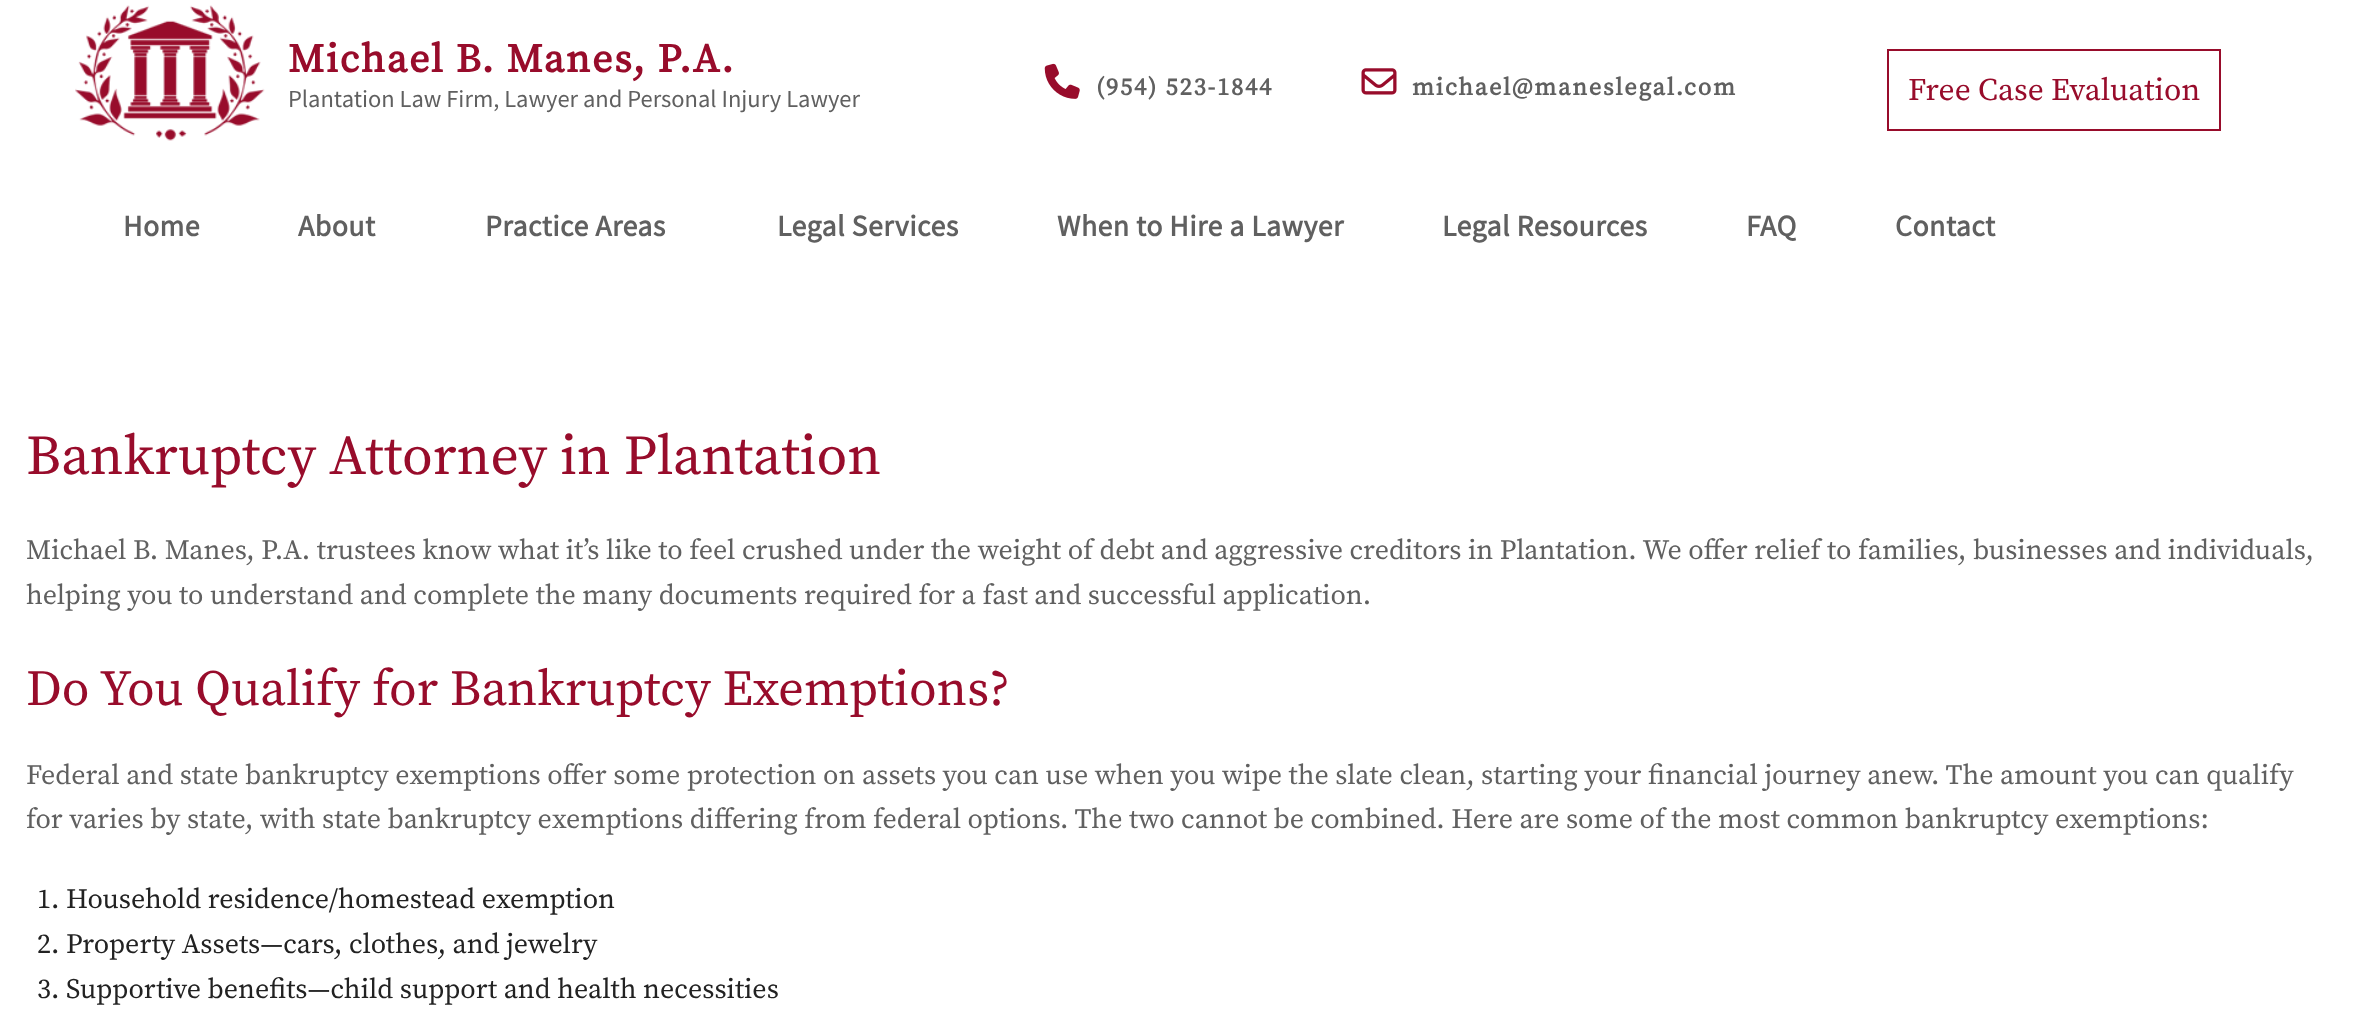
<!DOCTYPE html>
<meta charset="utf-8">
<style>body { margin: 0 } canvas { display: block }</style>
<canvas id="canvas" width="2360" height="1028"></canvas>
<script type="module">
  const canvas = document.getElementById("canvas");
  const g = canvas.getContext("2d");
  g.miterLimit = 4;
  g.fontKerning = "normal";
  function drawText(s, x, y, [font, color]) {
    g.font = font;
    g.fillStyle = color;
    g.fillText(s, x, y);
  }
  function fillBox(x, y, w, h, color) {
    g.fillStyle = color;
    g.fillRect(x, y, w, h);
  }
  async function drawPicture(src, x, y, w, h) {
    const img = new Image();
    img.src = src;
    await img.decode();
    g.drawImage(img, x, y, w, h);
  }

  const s1 = ["bold 40.25px Source Serif Pro", "#980C2B"];
  const s2 = ["24.5px Source Sans Pro", "#606060"];
  const s3 = ["bold 24.5px Source Serif Pro", "#606060"];
  const s4 = ["31.5px Source Serif Pro", "#980C2B"];
  const s5 = ["bold 29.75px Source Sans Pro", "#606060"];
  const s6 = ["56px Source Serif Pro", "#980C2B"];
  const s7 = ["28px Source Serif Pro", "#606060"];
  const s8 = ["50.4px Source Serif Pro", "#980C2B"];
  const s9 = ["28px Source Serif Pro", "#222222"];

  fillBox(0, 0, 2360, 1028, "#FFFFFF");
  await drawPicture("pic1.png", 75, 5, 190, 136);
  g.letterSpacing = "1.75px";
  drawText("Michael B. Manes, P.A.", 288, 72, s1);
  g.letterSpacing = "0px";
  drawText("Plantation Law Firm, Lawyer and Personal Injury Lawyer", 288, 107, s2);
  await drawPicture("pic2.png", 1044, 63, 36, 36);
  g.letterSpacing = "1.75px";
  drawText("(954) 523-1844", 1096, 95, s3);
  await drawPicture("pic3.png", 1361, 68, 36, 27);
  drawText("michael@maneslegal.com", 1412, 95, s3);
  g.strokeStyle = "#980C2B";
  g.lineWidth = 2;
  g.strokeRect(1888, 50, 332, 80);
  g.letterSpacing = "0px";
  drawText("Free Case Evaluation", 1908, 100, s4);
  g.letterSpacing = "0.5px";
  drawText("Home", 123, 236, s5);
  drawText("About", 298, 236, s5);
  drawText("Practice Areas", 485, 236, s5);
  drawText("Legal Services", 777, 236, s5);
  drawText("When to Hire a Lawyer", 1057, 236, s5);
  drawText("Legal Resources", 1442, 236, s5);
  drawText("FAQ", 1746, 236, s5);
  drawText("Contact", 1895, 236, s5);
  g.letterSpacing = "0px";
  drawText("Bankruptcy Attorney in Plantation", 26, 474, s6);
  drawText("Michael B. Manes, P.A. trustees know what it’s like to feel crushed under the weight of debt and aggressive creditors in Plantation. We offer relief to families, businesses and individuals,", 26, 559, s7);
  drawText("helping you to understand and complete the many documents required for a fast and successful application.", 26, 604, s7);
  drawText("Do You Qualify for Bankruptcy Exemptions?", 26, 705, s8);
  drawText("Federal and state bankruptcy exemptions offer some protection on assets you can use when you wipe the slate clean, starting your financial journey anew. The amount you can qualify", 26, 784, s7);
  drawText("for varies by state, with state bankruptcy exemptions differing from federal options. The two cannot be combined. Here are some of the most common bankruptcy exemptions:", 26, 828, s7);
  drawText("1. Household residence/homestead exemption", 37, 908, s9);
  drawText("2. Property Assets—cars, clothes, and jewelry", 37, 953, s9);
  drawText("3. Supportive benefits—child support and health necessities", 37, 998, s9);
</script>
